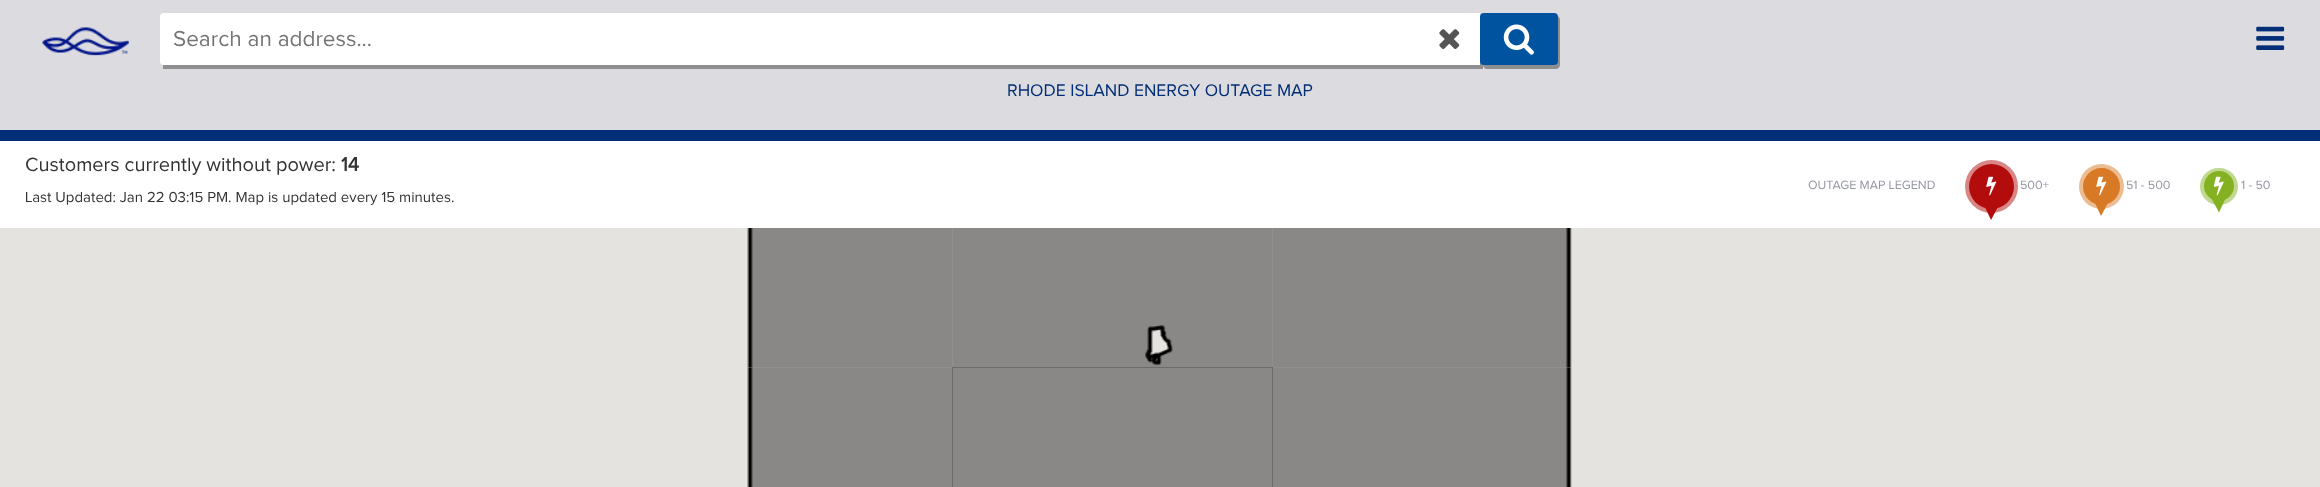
<!DOCTYPE html>
<meta charset="utf-8">
<style>body { margin: 0 } canvas { display: block }</style>
<canvas id="canvas" width="2320" height="487"></canvas>
<script type="module">
  const canvas = document.getElementById("canvas");
  const g = canvas.getContext("2d");
  g.miterLimit = 4;
  g.fontKerning = "normal";
  function drawText(s, x, y, [font, color]) {
    g.font = font;
    g.fillStyle = color;
    g.fillText(s, x, y);
  }
  function fillBox(x, y, w, h, color) {
    g.fillStyle = color;
    g.fillRect(x, y, w, h);
  }
  function fillRounded(x, y, w, h, r, color) {
    g.fillStyle = color;
    g.beginPath();
    g.roundRect(x, y, w, h, r);
    g.fill();
  }
  async function drawPicture(src, x, y, w, h) {
    const img = new Image();
    img.src = src;
    await img.decode();
    g.drawImage(img, x, y, w, h);
  }

  const s1 = ["22.5px Proxima Nova", "#757575"];
  const s2 = ["17.5px Proxima Nova", "#012E76"];
  const s3 = ["20px Proxima Nova", "#333333"];
  const s4 = ["bold 20px Proxima Nova", "#333333"];
  const s5 = ["15px Proxima Nova", "#333333"];
  const s6 = ["12.5px Proxima Nova", "#9597A1"];

  fillBox(0, 0, 2320, 487, "#E5E3DF");
  fillBox(0, 0, 2320, 130, "#DCDCE0");
  fillBox(0, 130, 2320, 11, "#012E76");
  await drawPicture("pic1.png", 42, 27, 87, 29);
  g.fillStyle = "#8F8F92";
  g.beginPath();
  g.moveTo(163, 65);
  g.lineTo(163, 69);
  g.lineTo(1483, 69);
  g.lineTo(1483, 16);
  g.lineTo(1480, 16);
  g.lineTo(1480, 65);
  g.closePath();
  g.fill();
  g.fillStyle = "#FFFFFF";
  g.beginPath();
  g.roundRect(160, 13, 1258, 52, [4, 0, 0, 4]);
  g.fill();
  drawText("Search an address...", 173, 46, s1);
  fillBox(1418, 13, 62, 52, "#FFFFFF");
  await drawPicture("pic2.png", 1439, 29, 21, 20);
  g.fillStyle = "#8F8F92";
  g.beginPath();
  g.moveTo(1483, 65);
  g.bezierCurveTo(1483, 67, 1485, 69, 1487, 69);
  g.lineTo(1556, 69);
  g.bezierCurveTo(1558, 69, 1560, 67, 1560, 65);
  g.lineTo(1560, 20);
  g.bezierCurveTo(1560, 18, 1559, 17, 1558, 16);
  g.lineTo(1558, 54);
  g.bezierCurveTo(1558, 56, 1559, 65, 1554, 65);
  g.closePath();
  g.fill();
  fillRounded(1480, 13, 78, 52, 4, "#00539F");
  await drawPicture("pic3.png", 1503, 24, 31, 31);
  await drawPicture("pic4.png", 2256, 26, 29, 24);
  drawText("RHODE ISLAND ENERGY OUTAGE MAP", 1007, 96, s2);
  fillBox(0, 141, 2320, 87, "#FFFFFF");
  drawText("Customers currently without power:", 25, 171, s3);
  drawText("14", 341, 171, s4);
  drawText("Last Updated: Jan 22 03:15 PM. Map is updated every 15 minutes.", 25, 202, s5);
  drawText("OUTAGE MAP LEGEND", 1808, 189, s6);
  g.fillStyle = "#D98686";
  g.beginPath();
  g.arc(1991.5, 186.5, 26.5, 0, Math.PI * 2);
  g.fill();
  g.fillStyle = "#B20C0C";
  g.beginPath();
  g.arc(1991.5, 186.5, 22.5, 0, Math.PI * 2);
  g.fill();
  await drawPicture("pic5.png", 1986, 176, 11, 20);
  g.beginPath();
  g.moveTo(1984, 205);
  g.lineTo(1999, 205);
  g.lineTo(1991, 220);
  g.closePath();
  g.fill();
  drawText("500+", 2020, 189, s6);
  g.fillStyle = "#ECBC92";
  g.beginPath();
  g.arc(2101.5, 186.5, 22.5, 0, Math.PI * 2);
  g.fill();
  g.fillStyle = "#D87925";
  g.beginPath();
  g.arc(2101.5, 186.5, 18.5, 0, Math.PI * 2);
  g.fill();
  await drawPicture("pic6.png", 2096, 176, 11, 20);
  g.beginPath();
  g.moveTo(2094, 201);
  g.lineTo(2109, 201);
  g.lineTo(2101, 216);
  g.closePath();
  g.fill();
  drawText("51 - 500", 2126, 189, s6);
  fillRounded(2200, 168, 38, 37, 18.5, "#C1D890");
  g.fillStyle = "#83B121";
  g.beginPath();
  g.arc(2219, 186, 15, 0, Math.PI * 2);
  g.fill();
  await drawPicture("pic7.png", 2213, 176, 11, 20);
  g.beginPath();
  g.moveTo(2211, 197.5);
  g.lineTo(2226, 197.5);
  g.lineTo(2219, 212.5);
  g.closePath();
  g.fill();
  drawText("1 - 50", 2241, 189, s6);
  await drawPicture("pic12.png", 1272, 367, 300, 120);
  fillBox(952, 367, 321, 120, "rgba(0, 0, 0, 0.4)");
  await drawPicture("pic9.png", 952, 228, 321, 140);
  await drawPicture("pic11.png", 747, 367, 206, 120);
  await drawPicture("pic8.png", 747, 228, 206, 140);
  await drawPicture("pic10.png", 1272, 228, 300, 140);
</script>
